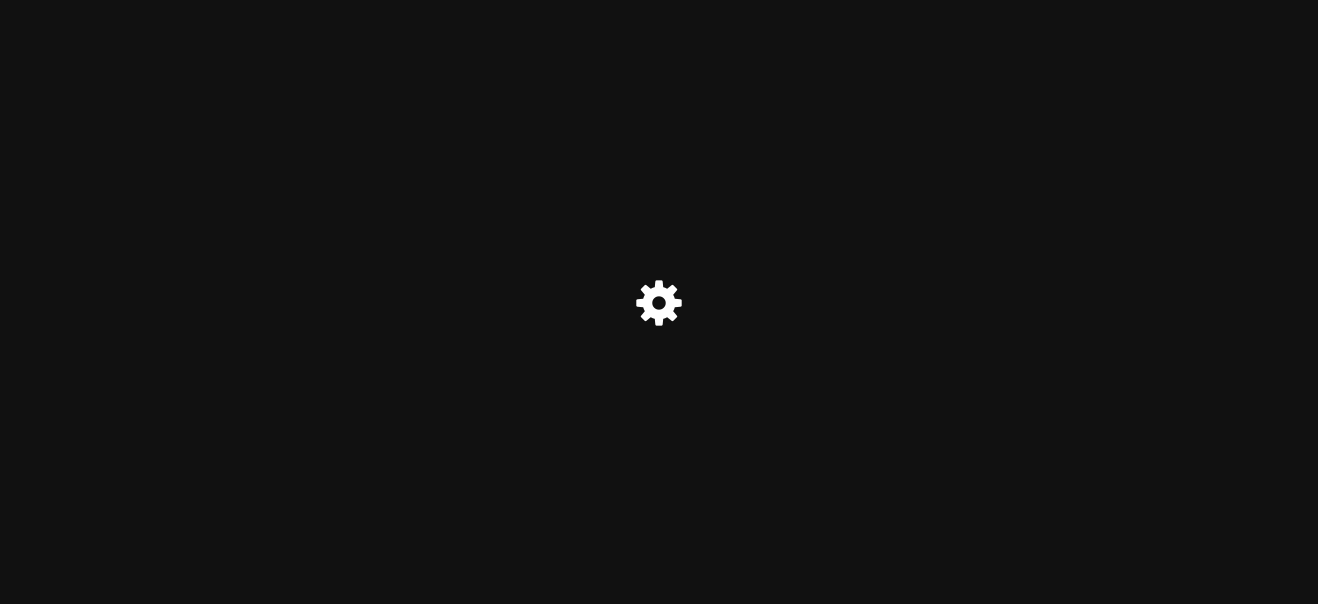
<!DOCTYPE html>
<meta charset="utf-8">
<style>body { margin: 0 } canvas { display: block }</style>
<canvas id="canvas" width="1318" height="604"></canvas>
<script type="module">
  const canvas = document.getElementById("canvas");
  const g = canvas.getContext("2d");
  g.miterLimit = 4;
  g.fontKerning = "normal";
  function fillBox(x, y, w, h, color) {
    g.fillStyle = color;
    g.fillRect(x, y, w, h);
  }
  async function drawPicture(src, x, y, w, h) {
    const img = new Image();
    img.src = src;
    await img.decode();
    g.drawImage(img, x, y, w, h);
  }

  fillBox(0, 0, 1318, 604, "#111111");
  await drawPicture("pic1.png", 636, 280, 46, 46);
</script>
